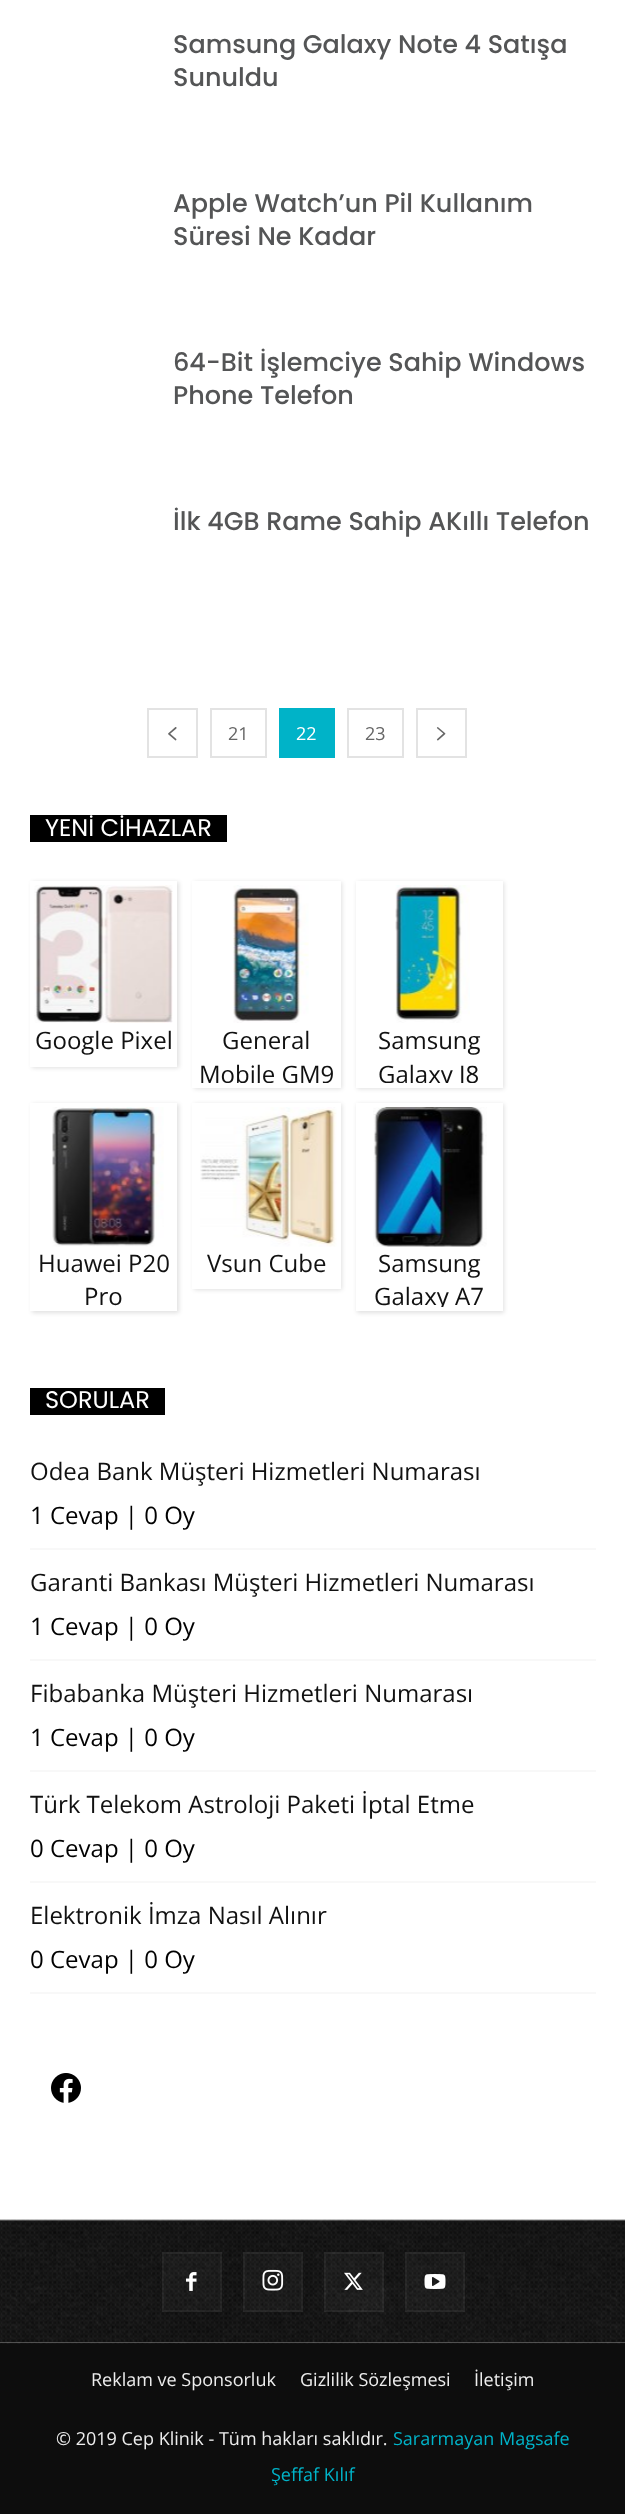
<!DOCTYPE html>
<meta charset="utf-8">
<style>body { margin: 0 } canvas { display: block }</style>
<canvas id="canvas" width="625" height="2514"></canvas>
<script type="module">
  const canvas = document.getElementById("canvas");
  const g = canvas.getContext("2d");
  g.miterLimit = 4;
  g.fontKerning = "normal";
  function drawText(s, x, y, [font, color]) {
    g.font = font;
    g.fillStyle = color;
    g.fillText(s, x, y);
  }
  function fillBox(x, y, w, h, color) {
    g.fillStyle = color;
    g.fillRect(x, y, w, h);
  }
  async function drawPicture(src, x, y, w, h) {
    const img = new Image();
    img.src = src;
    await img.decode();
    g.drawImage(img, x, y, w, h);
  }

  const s1 = ["500 25.5px Poppins", "#545556"];
  const s2 = ["18px Open Sans", "#666666"];
  const s3 = ["18px Open Sans", "#FFFFFF"];
  const s4 = ["24px Poppins", "#FFFFFF"];
  const s5 = ["24px Open Sans", "#111111"];
  const s6 = ["24px Open Sans", "#000000"];
  const s7 = ["18px Open Sans", "#EDEDED"];
  const s8 = ["18px Open Sans", "#00B3C8"];

  fillBox(0, 0, 625, 2514, "#FFFFFF");
  drawText("Samsung Galaxy Note 4 Satışa", 173, 53, s1);
  drawText("Sunuldu", 173, 86, s1);
  drawText("Apple Watch’un Pil Kullanım", 173, 212, s1);
  drawText("Süresi Ne Kadar", 173, 245, s1);
  drawText("64-Bit İşlemciye Sahip Windows", 173, 371, s1);
  drawText("Phone Telefon", 173, 404, s1);
  drawText("İlk 4GB Rame Sahip AKıllı Telefon", 173, 530, s1);
  g.strokeStyle = "#E3E3E3";
  g.lineWidth = 2;
  g.strokeRect(148, 709, 49, 48);
  await drawPicture("pic1.png", 168, 727, 9, 14);
  g.strokeRect(211, 709, 55, 48);
  drawText("21", 228, 740, s2);
  fillBox(279, 708, 56, 50, "#00B3C8");
  drawText("22", 296, 740, s3);
  g.strokeRect(348, 709, 55, 48);
  drawText("23", 365, 740, s2);
  g.strokeRect(417, 709, 49, 48);
  await drawPicture("pic2.png", 436, 727, 10, 14);
  fillBox(30, 815, 197, 27, "#000000");
  drawText("YENİ CİHAZLAR", 45, 836, s4);
  g.fillStyle = "rgba(0, 0, 0, 0.12)";
  g.filter = "blur(2px)";
  g.beginPath();
  g.rect(32, 882, 147, 186);
  g.fill();
  g.filter = "none";
  fillBox(30, 881, 147, 186, "#FFFFFF");
  await drawPicture("pic3.png", 34, 885, 139, 138);
  drawText("Google Pixel", 35, 1049, s5);
  g.fillStyle = "rgba(0, 0, 0, 0.12)";
  g.filter = "blur(2px)";
  g.beginPath();
  g.rect(194, 882, 148, 207);
  g.fill();
  g.filter = "none";
  fillBox(192, 881, 149, 207, "#FFFFFF");
  await drawPicture("pic4.png", 233, 885, 76, 138);
  drawText("General", 222, 1049, s5);
  g.save();
  g.beginPath();
  g.rect(197, 1023, 139, 60);
  g.clip();
  drawText("Mobile GM9", 199, 1083, s5);
  g.restore();
  g.fillStyle = "rgba(0, 0, 0, 0.12)";
  g.filter = "blur(2px)";
  g.beginPath();
  g.rect(357, 882, 147, 207);
  g.fill();
  g.filter = "none";
  fillBox(356, 881, 147, 207, "#FFFFFF");
  await drawPicture("pic5.png", 395, 885, 75, 138);
  drawText("Samsung", 378, 1049, s5);
  g.save();
  g.beginPath();
  g.rect(360, 1023, 138, 60);
  g.clip();
  drawText("Galaxy J8", 378, 1083, s5);
  g.restore();
  g.save();
  g.beginPath();
  g.moveTo(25, 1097);
  g.lineTo(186, 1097);
  g.lineTo(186, 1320);
  g.lineTo(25, 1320);
  g.closePath();
  g.moveTo(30, 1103);
  g.lineTo(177, 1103);
  g.lineTo(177, 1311);
  g.lineTo(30, 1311);
  g.closePath();
  g.clip("evenodd");
  g.fillStyle = "rgba(0, 0, 0, 0.12)";
  g.filter = "blur(2px)";
  g.beginPath();
  g.rect(32, 1104, 147, 209);
  g.fill();
  g.filter = "none";
  g.restore();
  await drawPicture("pic6.png", 52, 1107, 112, 140);
  drawText("Huawei P20", 38, 1272, s5);
  drawText("Pro", 84, 1305, s5);
  g.fillStyle = "rgba(0, 0, 0, 0.12)";
  g.filter = "blur(2px)";
  g.beginPath();
  g.rect(194, 1104, 148, 186);
  g.fill();
  g.filter = "none";
  fillBox(192, 1103, 149, 186, "#FFFFFF");
  await drawPicture("pic7.png", 200, 1107, 137, 140);
  drawText("Vsun Cube", 207, 1272, s5);
  g.fillStyle = "rgba(0, 0, 0, 0.12)";
  g.filter = "blur(2px)";
  g.beginPath();
  g.rect(357, 1104, 147, 209);
  g.fill();
  g.filter = "none";
  fillBox(356, 1103, 147, 208, "#FFFFFF");
  await drawPicture("pic8.png", 373, 1107, 114, 140);
  drawText("Samsung", 378, 1272, s5);
  g.save();
  g.beginPath();
  g.rect(360, 1247, 138, 60);
  g.clip();
  drawText("Galaxy A7", 374, 1305, s5);
  g.restore();
  fillBox(30, 1388, 135, 27, "#000000");
  drawText("SORULAR", 45, 1408, s4);
  fillBox(30, 1548, 566, 2, "#F8F8F8");
  drawText("Odea Bank Müşteri Hizmetleri Numarası", 30, 1480, s5);
  drawText("1 Cevap | 0 Oy", 30, 1524, s6);
  fillBox(30, 1659, 566, 2, "#F8F8F8");
  drawText("Garanti Bankası Müşteri Hizmetleri Numarası", 30, 1591, s5);
  drawText("1 Cevap | 0 Oy", 30, 1635, s6);
  fillBox(30, 1770, 566, 2, "#F8F8F8");
  drawText("Fibabanka Müşteri Hizmetleri Numarası", 30, 1702, s5);
  drawText("1 Cevap | 0 Oy", 30, 1746, s6);
  fillBox(30, 1881, 566, 2, "#F8F8F8");
  drawText("Türk Telekom Astroloji Paketi İptal Etme", 30, 1813, s5);
  drawText("0 Cevap | 0 Oy", 30, 1857, s6);
  fillBox(30, 1992, 566, 2, "#F8F8F8");
  drawText("Elektronik İmza Nasıl Alınır", 30, 1924, s5);
  drawText("0 Cevap | 0 Oy", 30, 1968, s6);
  await drawPicture("pic9.png", 51, 2073, 30, 30);
  fillBox(0, 2343, 625, 171, "#0D0D0D");
  await drawPicture("pic10.png", 0, 2219, 625, 125);
  fillBox(162, 2252, 60, 60, "rgba(255, 255, 255, 0.03)");
  await drawPicture("pic11.png", 186, 2272, 11, 19);
  g.strokeStyle = "rgba(255, 255, 255, 0.05)";
  g.strokeRect(163, 2253, 58, 58);
  fillBox(243, 2252, 60, 60, "rgba(255, 255, 255, 0.03)");
  await drawPicture("pic12.png", 262, 2269, 22, 22);
  g.strokeRect(244, 2253, 58, 58);
  fillBox(324, 2252, 60, 60, "rgba(255, 255, 255, 0.03)");
  await drawPicture("pic13.png", 344, 2272, 19, 18);
  g.strokeRect(325, 2253, 58, 58);
  fillBox(405, 2252, 60, 60, "rgba(255, 255, 255, 0.03)");
  await drawPicture("pic14.png", 424, 2274, 22, 15);
  g.strokeRect(406, 2253, 58, 58);
  drawText("Reklam ve Sponsorluk", 91, 2386, s7);
  drawText("Gizlilik Sözleşmesi", 300, 2386, s7);
  drawText("İletişim", 474, 2386, s7);
  drawText("© 2019 Cep Klinik - Tüm hakları saklıdır.", 56, 2445, s7);
  drawText("Sararmayan Magsafe", 393, 2445, s8);
  drawText("Şeffaf Kılıf", 271, 2481, s8);
</script>
